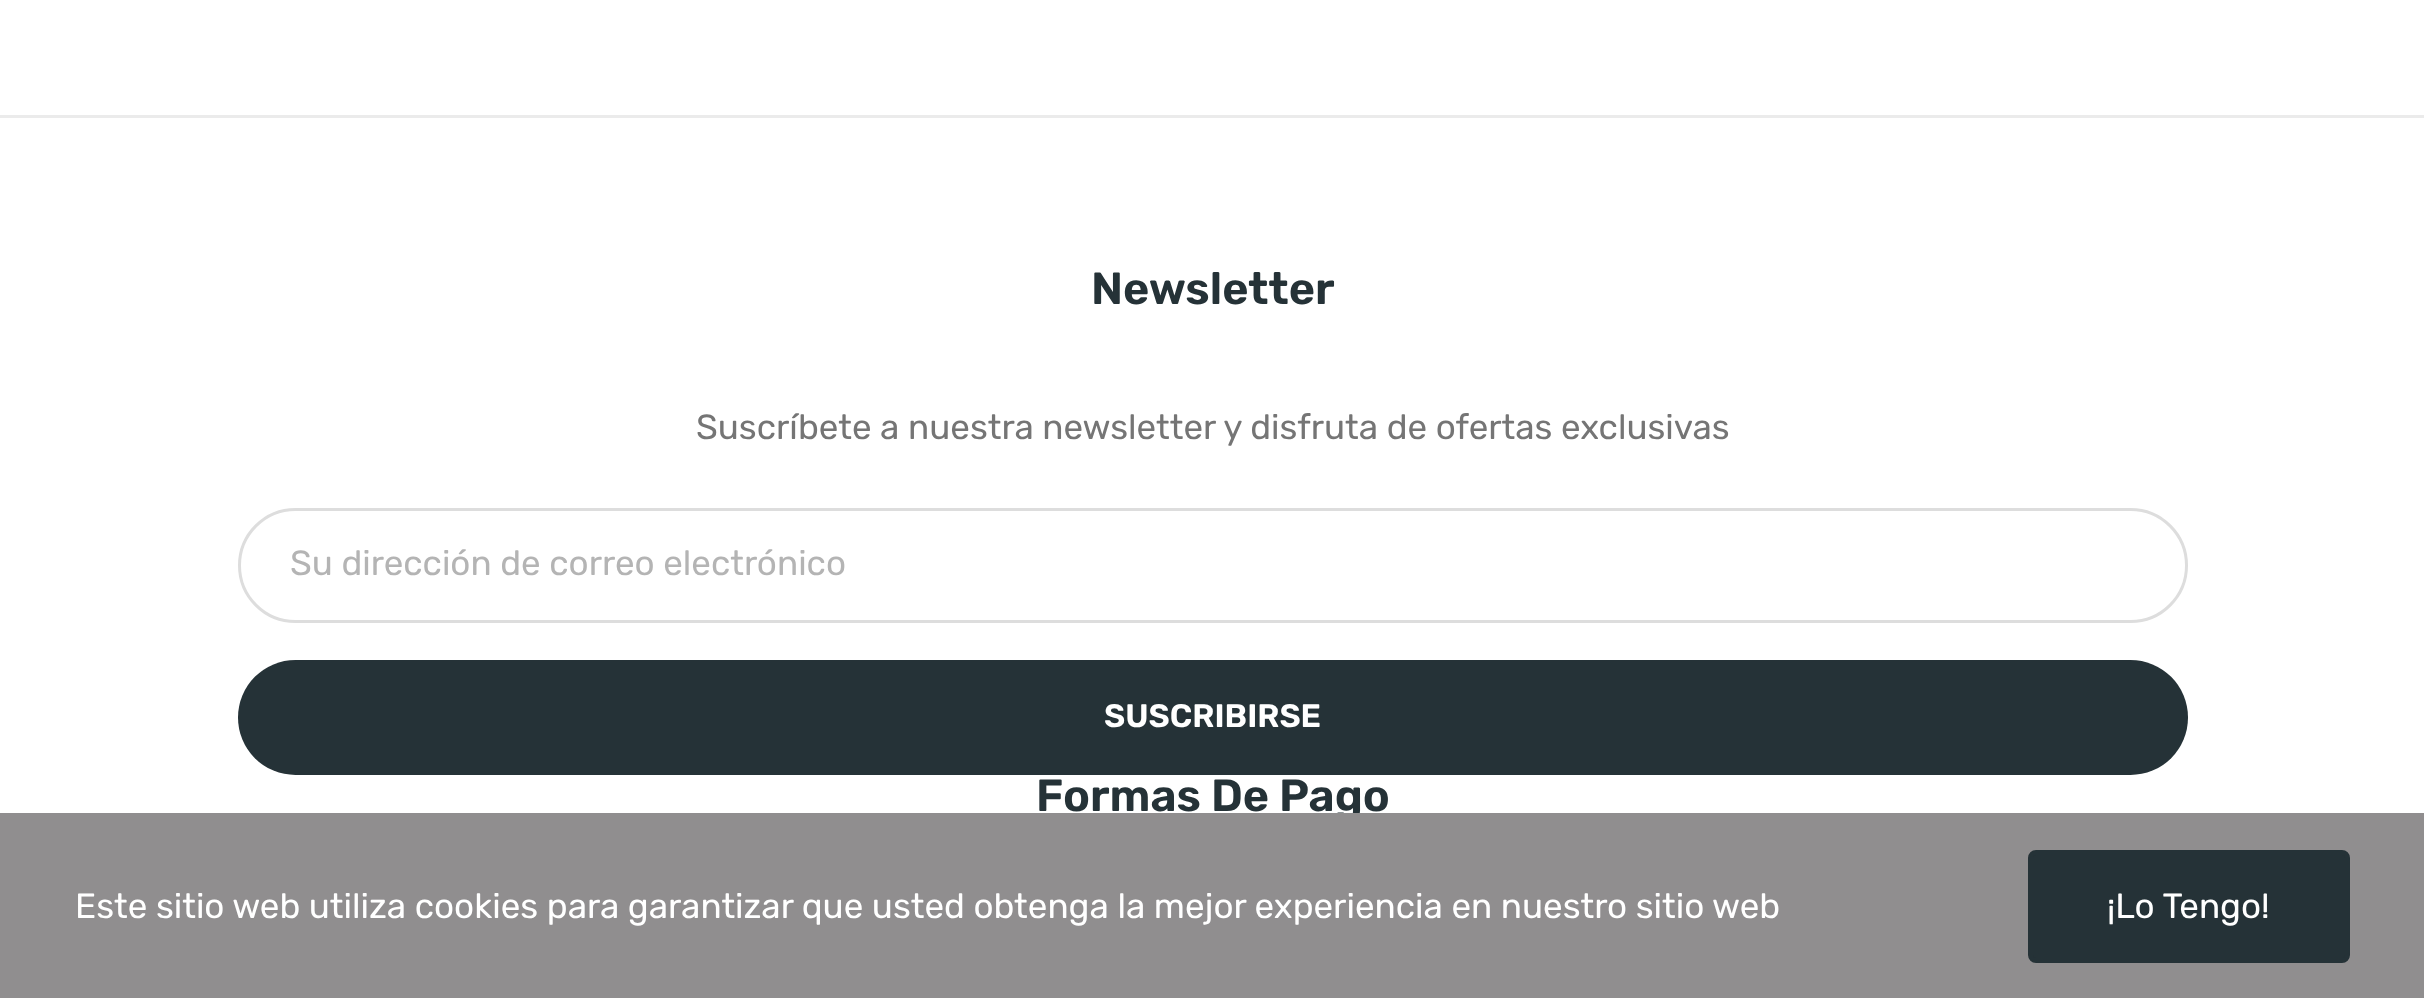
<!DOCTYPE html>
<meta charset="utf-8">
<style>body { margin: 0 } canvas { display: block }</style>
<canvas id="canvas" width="2424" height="998"></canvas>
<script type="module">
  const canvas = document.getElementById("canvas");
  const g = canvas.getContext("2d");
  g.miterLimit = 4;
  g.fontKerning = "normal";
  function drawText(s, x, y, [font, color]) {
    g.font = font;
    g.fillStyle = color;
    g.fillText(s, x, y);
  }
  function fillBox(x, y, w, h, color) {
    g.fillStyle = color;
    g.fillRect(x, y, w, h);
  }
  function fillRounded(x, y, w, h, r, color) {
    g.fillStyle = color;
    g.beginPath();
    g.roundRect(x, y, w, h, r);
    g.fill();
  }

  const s1 = ["600 45px Rubik", "#253237"];
  const s2 = ["35px Rubik", "#757575"];
  const s3 = ["35px Rubik", "#B4B4B4"];
  const s4 = ["600 32.5px Rubik", "#FFFFFF"];
  const s5 = ["35px Rubik", "#FFFFFF"];

  fillBox(0, 0, 2424, 998, "#FFFFFF");
  fillBox(0, 115, 2424, 3, "#EBEBEB");
  drawText("Newsletter", 1091, 304, s1);
  drawText("Suscríbete a nuestra newsletter y disfruta de ofertas exclusivas", 696, 439, s2);
  g.beginPath();
  g.roundRect(239.5, 509.5, 1947, 112, 56);
  g.strokeStyle = "#DDDDDD";
  g.lineWidth = 3;
  g.stroke();
  drawText("Su dirección de correo electrónico", 290, 575, s3);
  fillRounded(238, 660, 1950, 115, 57.5, "#253237");
  drawText("SUSCRIBIRSE", 1104, 727, s4);
  drawText("Formas De Pago", 1036, 811, s1);
  fillBox(0, 813, 2424, 185, "#908E8F");
  drawText("Este sitio web utiliza cookies para garantizar que usted obtenga la mejor experiencia en nuestro sitio web", 75, 918, s5);
  g.fillStyle = "#253237";
  g.beginPath();
  g.roundRect(2030.5, 852.5, 317, 108, 5.5);
  g.fill();
  g.strokeStyle = "#253237";
  g.lineWidth = 5;
  g.stroke();
  drawText("¡Lo Tengo!", 2107, 918, s5);
</script>
